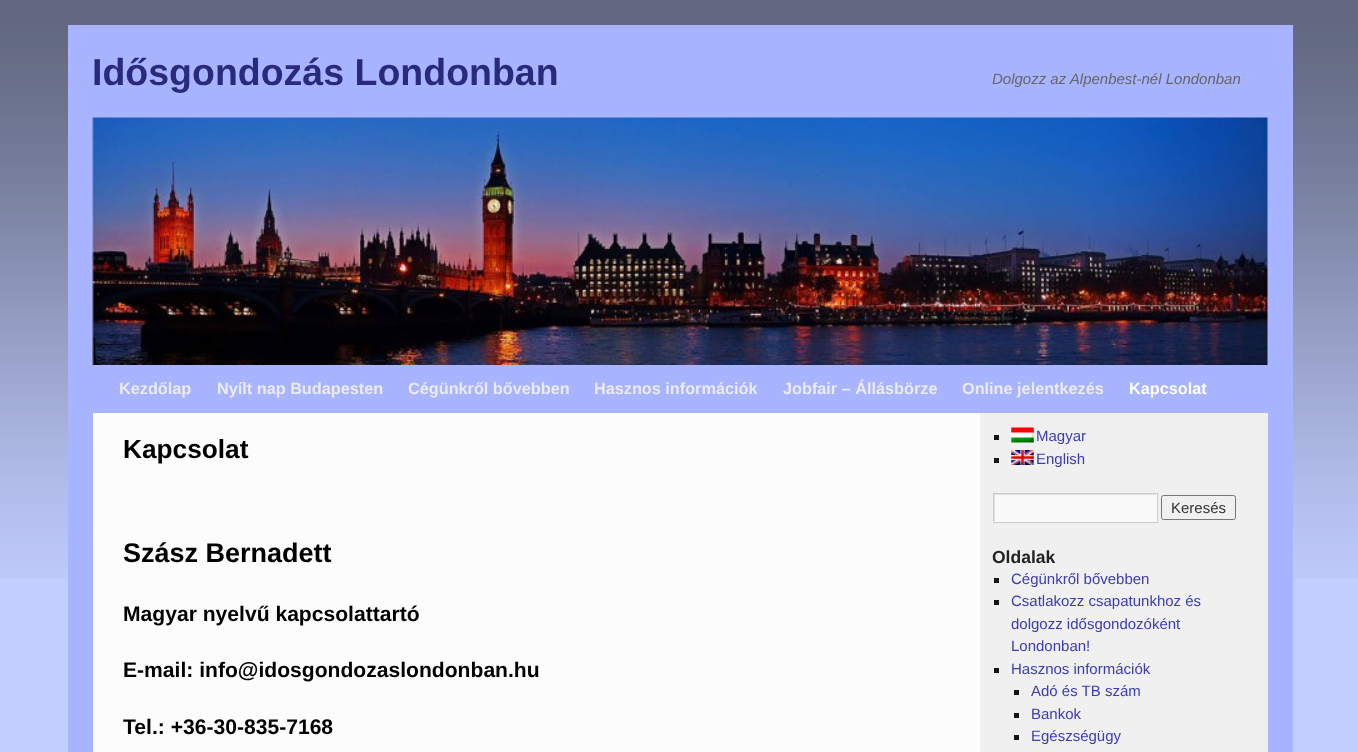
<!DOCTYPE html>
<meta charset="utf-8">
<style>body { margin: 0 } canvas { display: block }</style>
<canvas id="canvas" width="1358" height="752"></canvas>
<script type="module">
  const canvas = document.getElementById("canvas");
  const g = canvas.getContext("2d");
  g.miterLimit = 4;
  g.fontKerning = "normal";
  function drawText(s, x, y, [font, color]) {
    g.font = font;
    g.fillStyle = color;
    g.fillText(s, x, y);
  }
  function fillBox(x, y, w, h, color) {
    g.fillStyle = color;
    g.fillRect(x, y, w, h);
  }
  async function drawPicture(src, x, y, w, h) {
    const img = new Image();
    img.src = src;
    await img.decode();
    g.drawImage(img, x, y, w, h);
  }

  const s1 = ["bold 37.5px Liberation Sans", "#2A2A7D"];
  const s2 = ["italic 15px Liberation Sans", "#666666"];
  const s3 = ["bold 16.25px Liberation Sans", "#EBEBEB"];
  const s4 = ["bold 16.25px Liberation Sans", "#FFFFFF"];
  const s5 = ["bold 26.25px Liberation Sans", "#000000"];
  const s6 = ["bold 27px Liberation Sans", "#000000"];
  const s7 = ["bold 21.1px Liberation Sans", "#000000"];
  const s8 = ["15px Liberation Sans", "#3C3CB3"];
  const s9 = ["15px Liberation Sans", "#333333"];
  const s10 = ["bold 17.5px Liberation Sans", "#222222"];

  fillBox(0, 0, 1358, 752, "#C2CEFF");
  await drawPicture("pic1.png", 0, 0, 1358, 579);
  fillBox(68, 25, 1225, 727, "#A8B4FF");
  drawText("Idősgondozás Londonban", 92, 85, s1);
  drawText("Dolgozz az Alpenbest-nél Londonban", 992, 84, s2);
  await drawPicture("pic2.png", 92, 117, 1176, 248);
  drawText("Kezdőlap", 119, 394, s3);
  drawText("Nyílt nap Budapesten", 217, 394, s3);
  drawText("Cégünkről bővebben", 408, 394, s3);
  drawText("Hasznos információk", 594, 394, s3);
  drawText("Jobfair – Állásbörze", 783, 394, s3);
  drawText("Online jelentkezés", 962, 394, s3);
  drawText("Kapcsolat", 1129, 394, s4);
  fillBox(93, 413, 887, 339, "#FCFCFC");
  drawText("Kapcsolat", 123, 458, s5);
  drawText("Szász Bernadett", 123, 562, s6);
  drawText("Magyar nyelvű kapcsolattartó", 123, 621, s7);
  drawText("E-mail: info@idosgondozaslondonban.hu", 123, 677, s7);
  drawText("Tel.: +36-30-835-7168", 123, 734, s7);
  fillBox(980, 413, 288, 339, "#F0F0F0");
  fillBox(994, 435, 5, 5, "#141414");
  await drawPicture("pic3.png", 1011, 427, 23, 16);
  drawText("Magyar", 1036, 441, s8);
  fillBox(994, 458, 5, 5, "#141414");
  await drawPicture("pic4.png", 1011, 450, 23, 15);
  drawText("English", 1036, 464, s8);
  fillBox(994, 494, 163, 28, "#F9F9F9");
  g.save();
  g.beginPath();
  g.rect(994, 494, 162, 27);
  g.clip();
  g.fillStyle = "#E0E0E0";
  g.beginPath();
  g.moveTo(870, 370);
  g.lineTo(1280, 370);
  g.lineTo(1280, 645);
  g.lineTo(870, 645);
  g.closePath();
  g.moveTo(995, 495);
  g.lineTo(1158, 495);
  g.lineTo(1158, 522);
  g.lineTo(995, 522);
  g.closePath();
  g.fill("evenodd");
  g.restore();
  g.strokeStyle = "#CCCCCC";
  g.strokeRect(993.5, 493.5, 164, 29);
  g.beginPath();
  g.roundRect(1161.5, 495.5, 74, 24, 2);
  g.strokeStyle = "#767676";
  g.stroke();
  drawText("Keresés", 1171, 513, s9);
  drawText("Oldalak", 992, 563, s10);
  fillBox(994, 578, 5, 5, "#141414");
  drawText("Cégünkről bővebben", 1011, 584, s8);
  fillBox(994, 600, 5, 5, "#141414");
  drawText("Csatlakozz csapatunkhoz és", 1011, 606, s8);
  drawText("dolgozz idősgondozóként", 1011, 629, s8);
  drawText("Londonban!", 1011, 651, s8);
  fillBox(994, 668, 5, 5, "#141414");
  drawText("Hasznos információk", 1011, 674, s8);
  fillBox(1014, 690, 5, 5, "#141414");
  drawText("Adó és TB szám", 1031, 696, s8);
  fillBox(1014, 713, 5, 5, "#141414");
  drawText("Bankok", 1031, 719, s8);
  fillBox(1014, 735, 5, 5, "#141414");
  drawText("Egészségügy", 1031, 741, s8);
</script>
